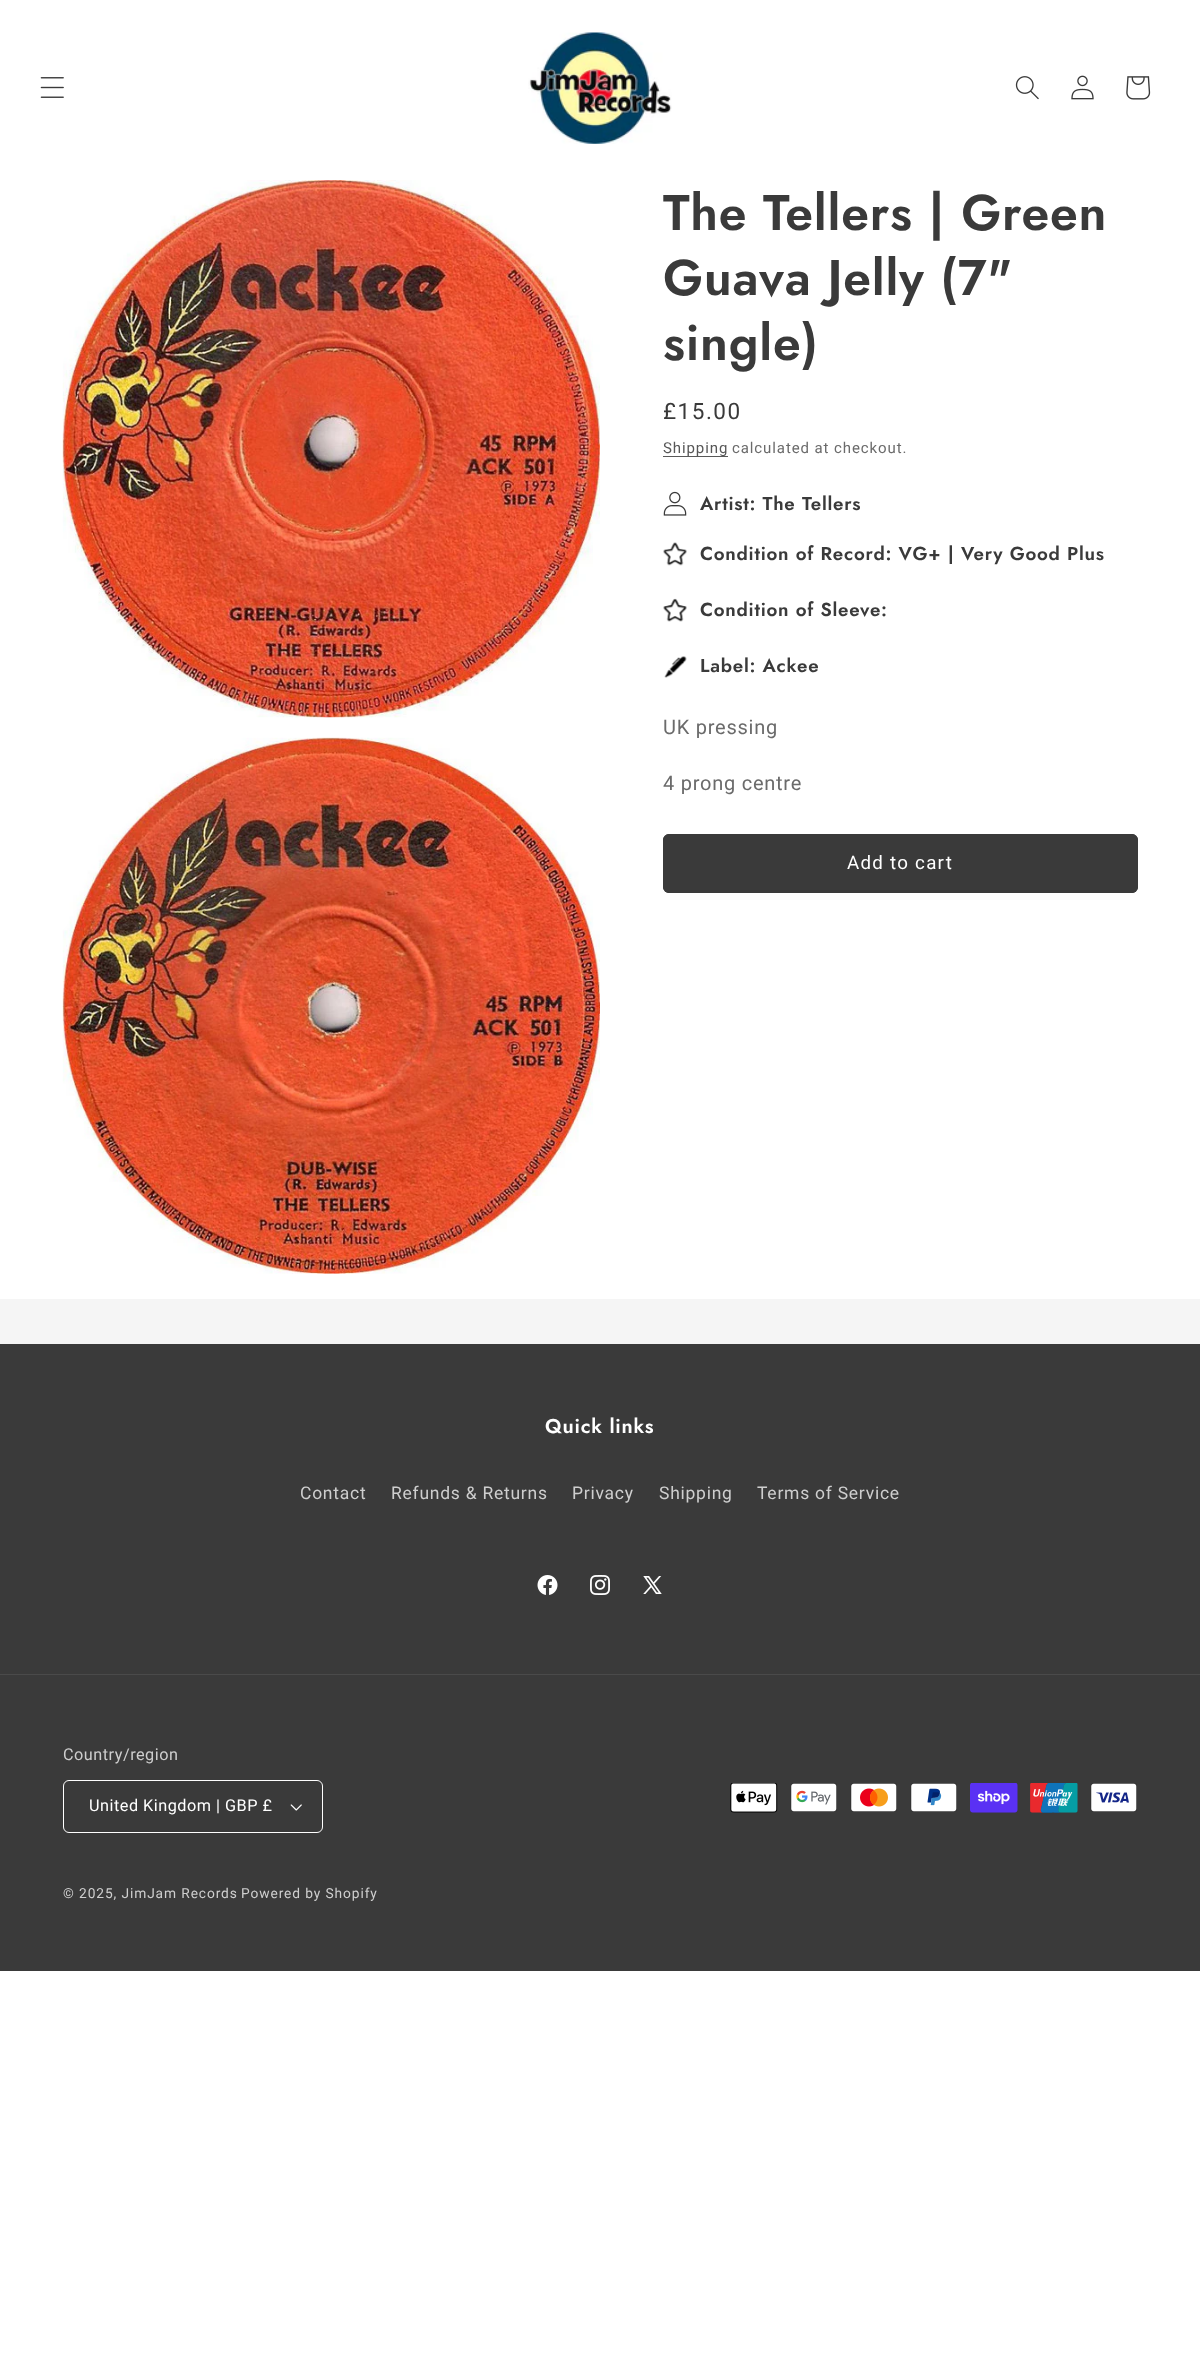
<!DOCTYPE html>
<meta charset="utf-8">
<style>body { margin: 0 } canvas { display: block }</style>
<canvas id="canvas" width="1200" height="2377"></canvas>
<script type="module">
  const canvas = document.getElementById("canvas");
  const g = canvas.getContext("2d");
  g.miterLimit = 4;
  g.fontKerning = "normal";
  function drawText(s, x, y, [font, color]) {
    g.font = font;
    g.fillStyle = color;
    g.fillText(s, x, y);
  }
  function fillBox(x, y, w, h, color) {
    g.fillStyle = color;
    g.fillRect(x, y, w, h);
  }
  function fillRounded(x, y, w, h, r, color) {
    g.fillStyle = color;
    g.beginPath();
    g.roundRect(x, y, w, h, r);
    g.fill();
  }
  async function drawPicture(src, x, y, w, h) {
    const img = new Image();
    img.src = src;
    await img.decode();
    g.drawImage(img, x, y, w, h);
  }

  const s1 = ["600 50px Jost", "#3A3A3A"];
  const s2 = ["22.5px Roboto", "#3A3A3A"];
  const s3 = ["15px Roboto", "#575757"];
  const s4 = ["15px Roboto", "#6B6B6B"];
  const s5 = ["600 18.75px Jost", "#3A3A3A"];
  const s6 = ["20px Roboto", "#6B6B6B"];
  const s7 = ["18.75px Roboto", "#FFFFFF"];
  const s8 = ["600 20px Jost", "#FFFFFF"];
  const s9 = ["17.5px Roboto", "#CECECE"];
  const s10 = ["16.25px Roboto", "#CECECE"];
  const s11 = ["16.25px Roboto", "#FFFFFF"];
  const s12 = ["13.75px Roboto", "#CECECE"];

  fillBox(0, 0, 1200, 2377, "#FFFFFF");
  await drawPicture("pic1.png", 40, 77, 24, 21);
  await drawPicture("pic2.png", 528, 32, 144, 112);
  await drawPicture("pic3.png", 1015, 76, 24, 24);
  await drawPicture("pic4.png", 1071, 75, 23, 25);
  await drawPicture("pic5.png", 1126, 76, 25, 24);
  await drawPicture("pic6.png", 62, 180, 538, 538);
  await drawPicture("pic7.png", 62, 737, 538, 537);
  g.letterSpacing = "0.75px";
  drawText("The Tellers | Green", 663, 230, s1);
  drawText("Guava Jelly (7\"", 663, 295, s1);
  drawText("single)", 663, 360, s1);
  g.letterSpacing = "1.5px";
  drawText("£15.00", 663, 419, s2);
  fillBox(663, 456, 65, 1, "#585858");
  g.letterSpacing = "0.9px";
  drawText("Shipping", 663, 453, s3);
  drawText("calculated at checkout.", 732, 453, s4);
  await drawPicture("pic8.png", 663, 491, 24, 25);
  g.letterSpacing = "0.75px";
  drawText("Artist: The Tellers", 700, 510, s5);
  await drawPicture("pic9.png", 663, 542, 24, 24);
  drawText("Condition of Record: VG+ | Very Good Plus", 700, 560, s5);
  await drawPicture("pic10.png", 663, 598, 24, 24);
  drawText("Condition of Sleeve:", 700, 616, s5);
  await drawPicture("pic11.png", 664, 656, 23, 22);
  drawText("Label: Ackee", 700, 672, s5);
  drawText("UK pressing", 663, 734, s6);
  drawText("4 prong centre", 663, 790, s6);
  fillRounded(663, 834, 475, 59, 6, "#3A3A3A");
  g.beginPath();
  g.roundRect(663.5, 834.5, 474, 58, 5.5);
  g.strokeStyle = "#3A3A3A";
  g.stroke();
  g.letterSpacing = "1.25px";
  drawText("Add to cart", 847, 869, s7);
  fillBox(0, 1299, 1200, 45, "#F5F5F5");
  fillBox(0, 1344, 1200, 627, "#3A3A3A");
  g.letterSpacing = "0.75px";
  drawText("Quick links", 545, 1433, s8);
  drawText("Contact", 300, 1499, s9);
  drawText("Refunds & Returns", 391, 1499, s9);
  drawText("Privacy", 572, 1499, s9);
  drawText("Shipping", 659, 1499, s9);
  drawText("Terms of Service", 757, 1499, s9);
  await drawPicture("pic12.png", 537, 1575, 21, 20);
  await drawPicture("pic13.png", 590, 1575, 20, 20);
  await drawPicture("pic14.png", 643, 1576, 19, 18);
  fillBox(0, 1674, 1200, 1, "#4A4A4A");
  g.letterSpacing = "0.5px";
  drawText("Country/region", 63, 1760, s10);
  await drawPicture("pic15.png", 290, 1804, 12, 7);
  g.beginPath();
  g.roundRect(63.5, 1780.5, 259, 52, 5.5);
  g.strokeStyle = "#FFFFFF";
  g.stroke();
  drawText("United Kingdom | GBP £", 89, 1811, s11);
  await drawPicture("pic16.png", 730, 1783, 48, 30);
  await drawPicture("pic17.png", 790, 1783, 47, 29);
  await drawPicture("pic18.png", 850, 1783, 47, 29);
  await drawPicture("pic19.png", 910, 1783, 47, 29);
  await drawPicture("pic20.png", 970, 1783, 48, 30);
  await drawPicture("pic21.png", 1030, 1783, 48, 30);
  await drawPicture("pic22.png", 1090, 1783, 47, 29);
  g.letterSpacing = "0.9px";
  drawText("© 2025, JimJam Records", 63, 1898, s12);
  drawText("Powered by Shopify", 241, 1898, s12);
</script>
